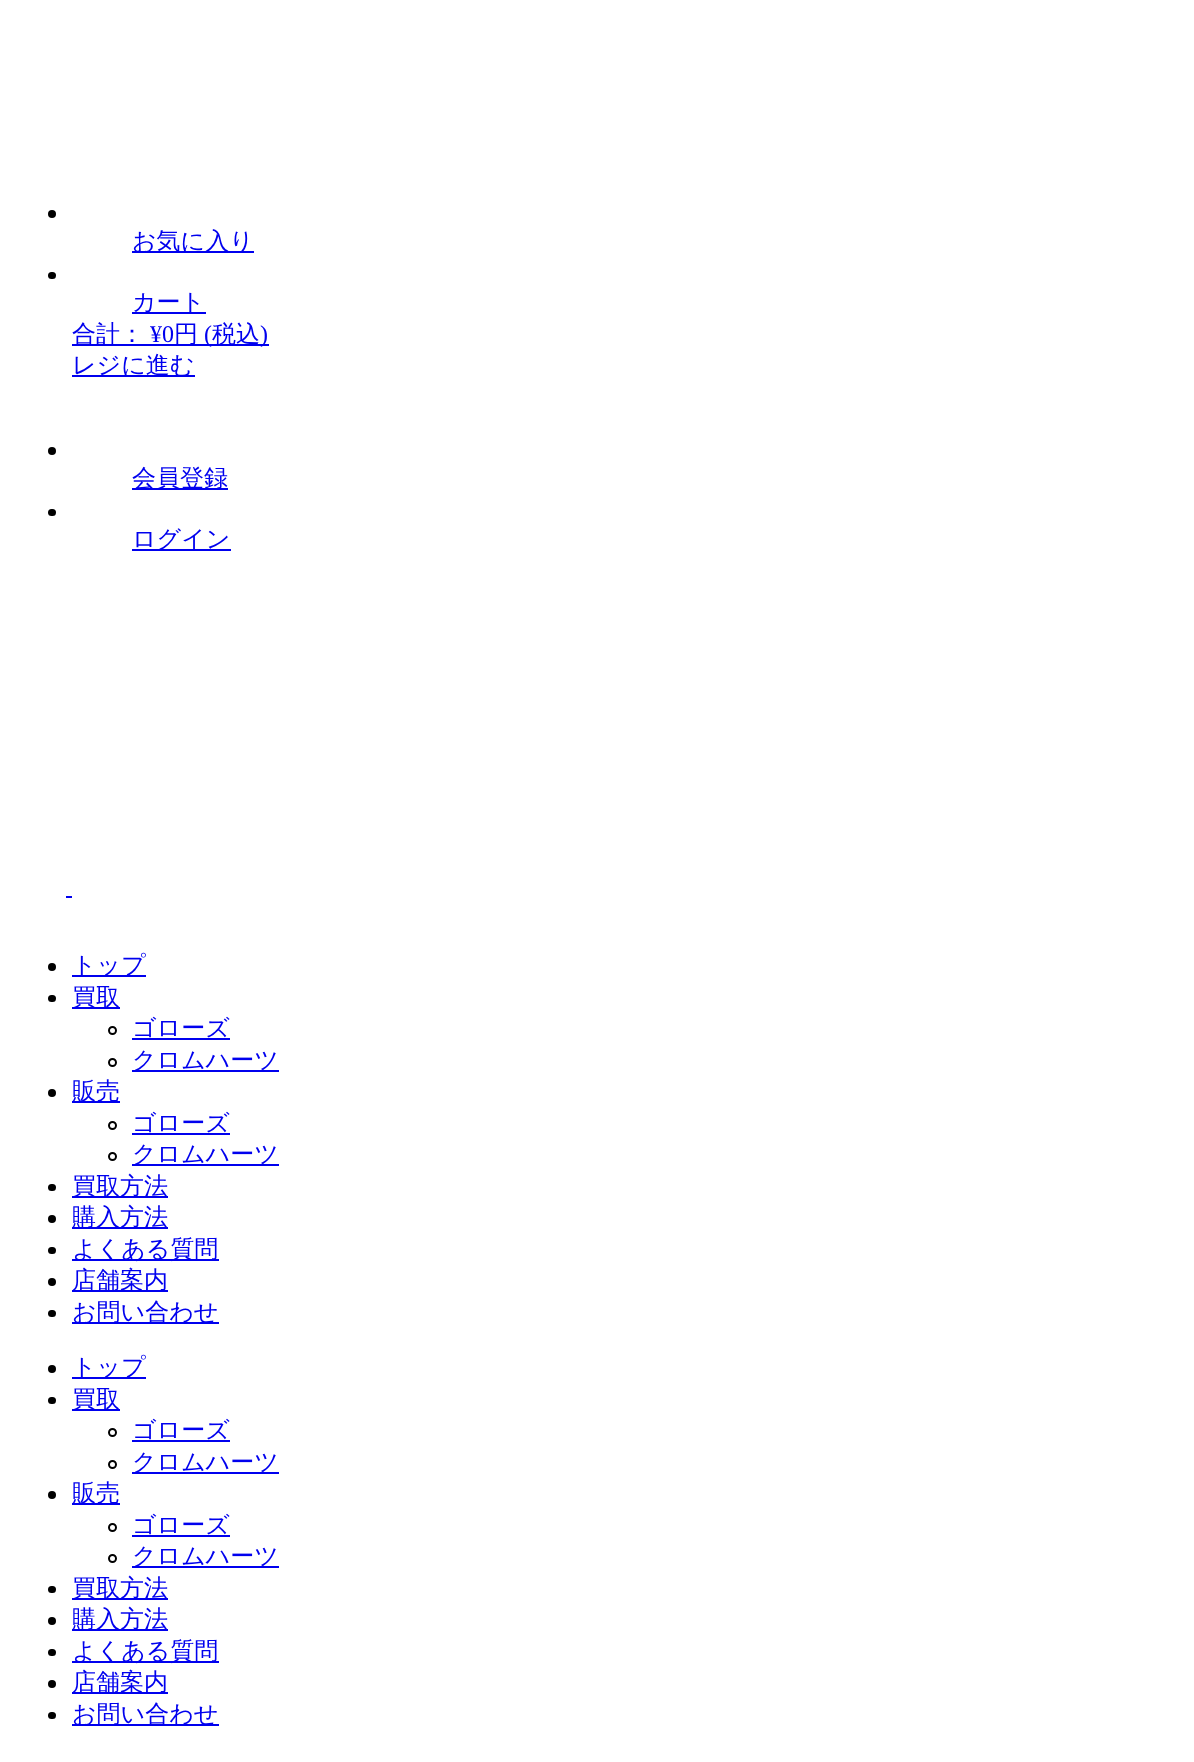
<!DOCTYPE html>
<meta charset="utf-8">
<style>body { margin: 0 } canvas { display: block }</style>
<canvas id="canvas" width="1194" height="1762"></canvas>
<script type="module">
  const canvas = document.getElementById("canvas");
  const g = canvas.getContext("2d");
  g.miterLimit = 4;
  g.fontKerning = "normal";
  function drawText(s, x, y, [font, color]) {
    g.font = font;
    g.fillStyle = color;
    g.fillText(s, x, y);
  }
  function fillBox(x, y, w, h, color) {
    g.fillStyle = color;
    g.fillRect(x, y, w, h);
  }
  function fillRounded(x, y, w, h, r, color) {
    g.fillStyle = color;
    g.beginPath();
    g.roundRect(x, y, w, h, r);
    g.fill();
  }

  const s1 = ["500 24px WenQuanYi Zen Hei", "#0000EE"];
  const s2 = ["24px Liberation Serif", "#0000EE"];

  fillBox(0, 0, 1194, 1762, "#FFFFFF");
  g.fillStyle = "#000000";
  g.beginPath();
  g.arc(52, 214, 4, 0, Math.PI * 2);
  g.fill();
  fillBox(132, 251, 122, 2, "#0000EE");
  drawText("お気に入り", 132, 249, s1);
  fillRounded(48, 272, 8, 7, 3.5, "#000000");
  fillBox(132, 312, 74, 2, "#0000EE");
  drawText("カート", 132, 310, s1);
  fillBox(72, 344, 197, 2, "#0000EE");
  drawText("合計：", 72, 342, s1);
  drawText("¥0", 150, 342, s2);
  drawText("円", 174, 342, s1);
  drawText("(", 204, 342, s2);
  drawText("税込", 212, 342, s1);
  drawText(")", 260, 342, s2);
  fillBox(72, 375, 123, 2, "#0000EE");
  drawText("レジに進む", 72, 373, s1);
  g.fillStyle = "#000000";
  g.beginPath();
  g.arc(52, 451, 4, 0, Math.PI * 2);
  g.fill();
  fillBox(132, 488, 96, 2, "#0000EE");
  drawText("会員登録", 132, 486, s1);
  fillRounded(48, 509, 8, 7, 3.5, "#000000");
  fillBox(132, 549, 99, 2, "#0000EE");
  drawText("ログイン", 132, 547, s1);
  fillBox(66, 896, 6, 2, "#0000EE");
  g.fillStyle = "#000000";
  g.beginPath();
  g.arc(52, 967, 4, 0, Math.PI * 2);
  g.fill();
  fillBox(72, 975, 74, 2, "#0000EE");
  drawText("トップ", 72, 973, s1);
  fillRounded(48, 995, 8, 7, 3.5, "#000000");
  fillBox(72, 1007, 48, 2, "#0000EE");
  drawText("買取", 72, 1005, s1);
  g.beginPath();
  g.arc(112.5, 1030.5, 3.5, 0, Math.PI * 2);
  g.strokeStyle = "#000000";
  g.lineWidth = 2;
  g.stroke();
  drawText("ゴローズ", 132, 1036, s1);
  fillBox(132, 1038, 98, 2, "#0000EE");
  g.beginPath();
  g.arc(112.5, 1062.5, 3.5, 0, Math.PI * 2);
  g.stroke();
  fillBox(132, 1070, 147, 2, "#0000EE");
  drawText("クロムハーツ", 132, 1068, s1);
  g.fillStyle = "#000000";
  g.beginPath();
  g.arc(52, 1093, 4, 0, Math.PI * 2);
  g.fill();
  fillBox(72, 1101, 48, 2, "#0000EE");
  drawText("販売", 72, 1099, s1);
  g.beginPath();
  g.arc(112.5, 1125.5, 3.5, 0, Math.PI * 2);
  g.stroke();
  drawText("ゴローズ", 132, 1131, s1);
  fillBox(132, 1133, 98, 2, "#0000EE");
  g.beginPath();
  g.arc(112.5, 1156.5, 3.5, 0, Math.PI * 2);
  g.stroke();
  fillBox(132, 1164, 147, 2, "#0000EE");
  drawText("クロムハーツ", 132, 1162, s1);
  fillRounded(48, 1184, 8, 7, 3.5, "#000000");
  fillBox(72, 1196, 96, 2, "#0000EE");
  drawText("買取方法", 72, 1194, s1);
  g.fillStyle = "#000000";
  g.beginPath();
  g.arc(52, 1219, 4, 0, Math.PI * 2);
  g.fill();
  fillBox(72, 1227, 96, 2, "#0000EE");
  drawText("購入方法", 72, 1225, s1);
  fillRounded(48, 1247, 8, 7, 3.5, "#000000");
  fillBox(72, 1259, 147, 2, "#0000EE");
  drawText("よくある質問", 72, 1257, s1);
  g.fillStyle = "#000000";
  g.beginPath();
  g.arc(52, 1282, 4, 0, Math.PI * 2);
  g.fill();
  fillBox(72, 1290, 96, 2, "#0000EE");
  drawText("店舗案内", 72, 1288, s1);
  fillRounded(48, 1310, 8, 7, 3.5, "#000000");
  fillBox(72, 1322, 147, 2, "#0000EE");
  drawText("お問い合わせ", 72, 1320, s1);
  g.fillStyle = "#000000";
  g.beginPath();
  g.arc(52, 1369, 4, 0, Math.PI * 2);
  g.fill();
  fillBox(72, 1377, 74, 2, "#0000EE");
  drawText("トップ", 72, 1375, s1);
  fillRounded(48, 1397, 8, 7, 3.5, "#000000");
  fillBox(72, 1409, 48, 2, "#0000EE");
  drawText("買取", 72, 1407, s1);
  g.beginPath();
  g.arc(112.5, 1432.5, 3.5, 0, Math.PI * 2);
  g.stroke();
  drawText("ゴローズ", 132, 1438, s1);
  fillBox(132, 1440, 98, 2, "#0000EE");
  g.beginPath();
  g.arc(112.5, 1464.5, 3.5, 0, Math.PI * 2);
  g.stroke();
  fillBox(132, 1472, 147, 2, "#0000EE");
  drawText("クロムハーツ", 132, 1470, s1);
  g.fillStyle = "#000000";
  g.beginPath();
  g.arc(52, 1495, 4, 0, Math.PI * 2);
  g.fill();
  fillBox(72, 1503, 48, 2, "#0000EE");
  drawText("販売", 72, 1501, s1);
  g.beginPath();
  g.arc(112.5, 1527.5, 3.5, 0, Math.PI * 2);
  g.stroke();
  drawText("ゴローズ", 132, 1533, s1);
  fillBox(132, 1535, 98, 2, "#0000EE");
  g.beginPath();
  g.arc(112.5, 1558.5, 3.5, 0, Math.PI * 2);
  g.stroke();
  fillBox(132, 1566, 147, 2, "#0000EE");
  drawText("クロムハーツ", 132, 1564, s1);
  fillRounded(48, 1586, 8, 7, 3.5, "#000000");
  fillBox(72, 1598, 96, 2, "#0000EE");
  drawText("買取方法", 72, 1596, s1);
  g.fillStyle = "#000000";
  g.beginPath();
  g.arc(52, 1621, 4, 0, Math.PI * 2);
  g.fill();
  fillBox(72, 1629, 96, 2, "#0000EE");
  drawText("購入方法", 72, 1627, s1);
  fillRounded(48, 1649, 8, 7, 3.5, "#000000");
  fillBox(72, 1661, 147, 2, "#0000EE");
  drawText("よくある質問", 72, 1659, s1);
  g.fillStyle = "#000000";
  g.beginPath();
  g.arc(52, 1684, 4, 0, Math.PI * 2);
  g.fill();
  fillBox(72, 1692, 96, 2, "#0000EE");
  drawText("店舗案内", 72, 1690, s1);
  fillRounded(48, 1712, 8, 7, 3.5, "#000000");
  fillBox(72, 1724, 147, 2, "#0000EE");
  drawText("お問い合わせ", 72, 1722, s1);
</script>
